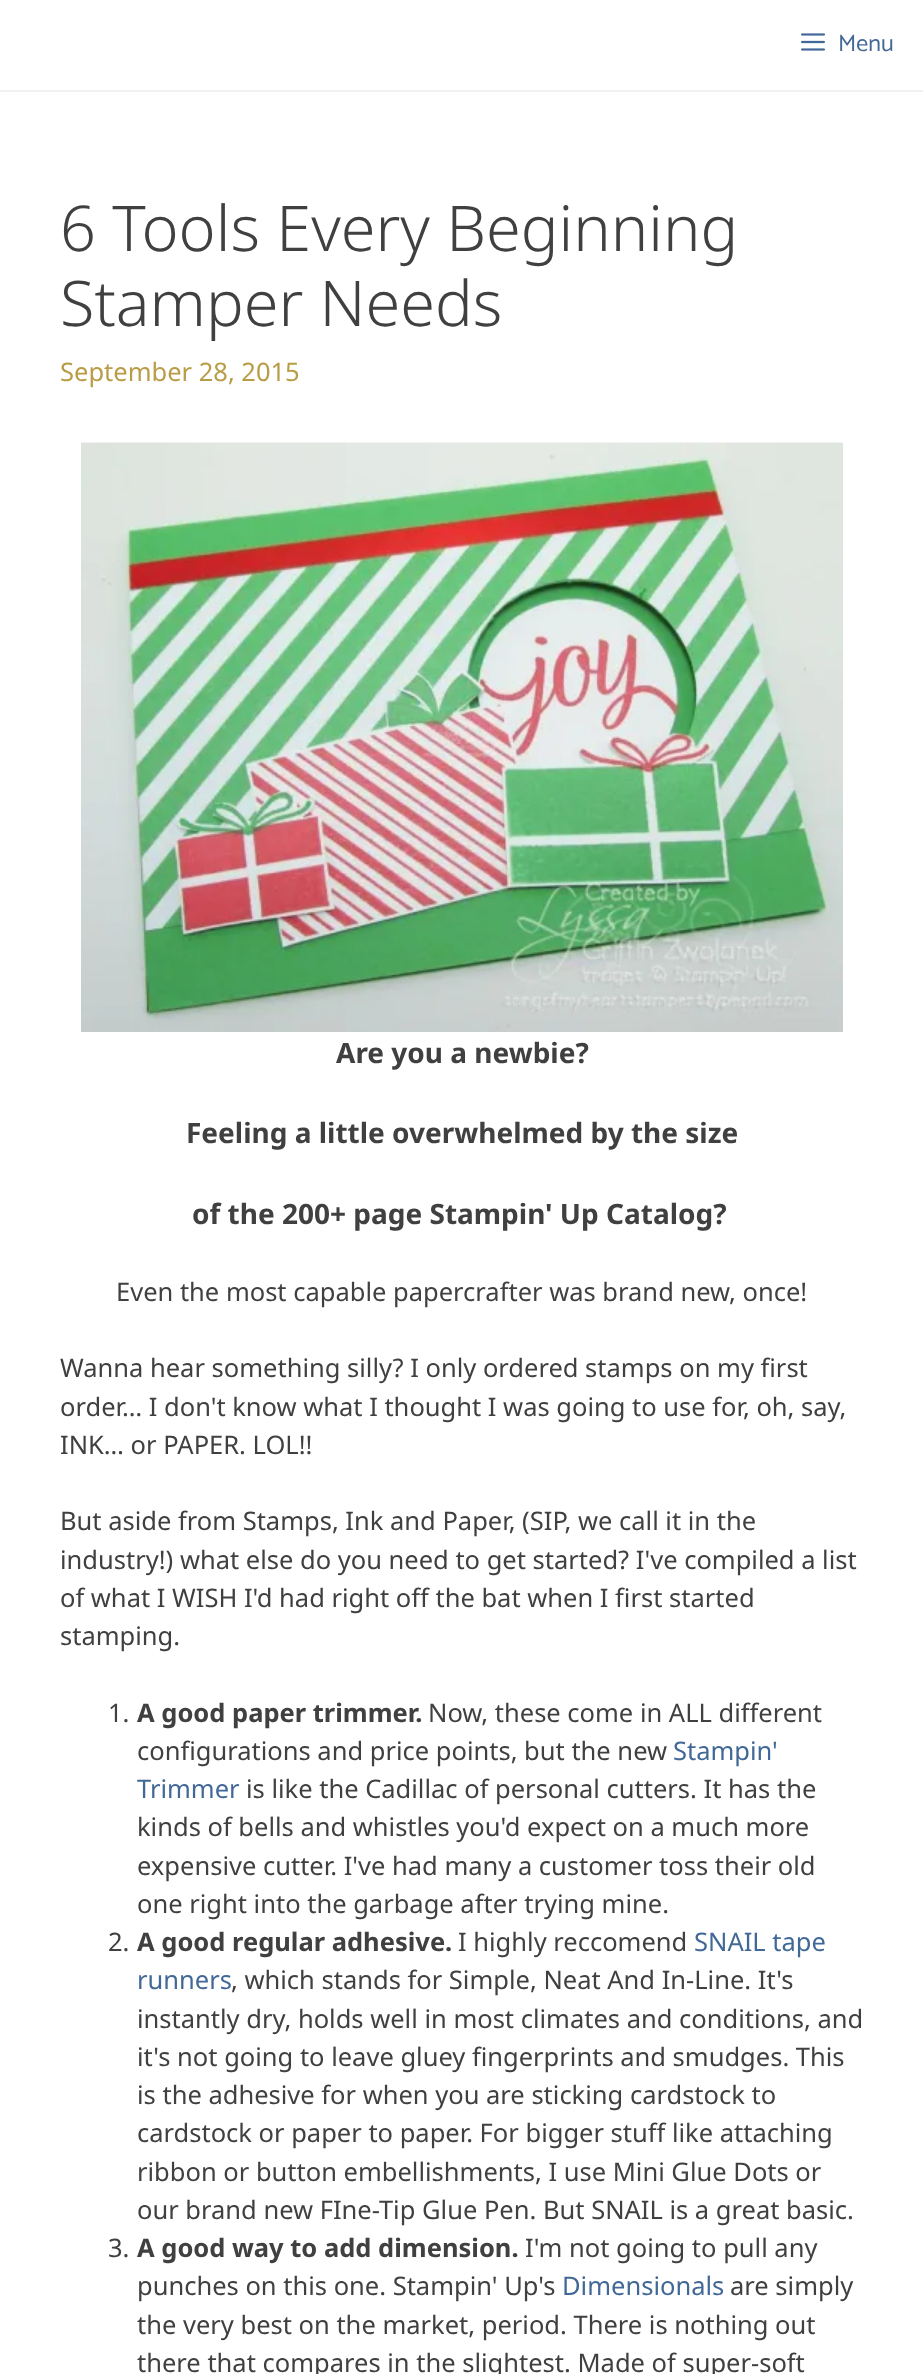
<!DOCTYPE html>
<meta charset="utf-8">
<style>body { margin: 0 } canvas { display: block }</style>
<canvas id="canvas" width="923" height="2374"></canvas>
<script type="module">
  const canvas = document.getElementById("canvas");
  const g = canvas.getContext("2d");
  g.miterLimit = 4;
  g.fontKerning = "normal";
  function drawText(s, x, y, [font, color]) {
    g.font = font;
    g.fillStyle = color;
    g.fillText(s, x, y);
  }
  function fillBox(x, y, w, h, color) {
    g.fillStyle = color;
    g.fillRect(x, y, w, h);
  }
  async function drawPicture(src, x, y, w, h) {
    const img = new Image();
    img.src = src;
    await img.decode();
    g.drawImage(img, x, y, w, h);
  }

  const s1 = ["24px Catamaran", "#426897"];
  const s2 = ["300 63px Noto Sans", "#404040"];
  const s3 = ["25.5px Noto Sans", "#B89C46"];
  const s4 = ["bold 28px Noto Sans", "#404040"];
  const s5 = ["25.5px Noto Sans", "#404040"];
  const s6 = ["bold 25.5px Noto Sans", "#404040"];
  const s7 = ["25.5px Noto Sans", "#426897"];

  fillBox(0, 0, 923, 2374, "#FFFFFF");
  fillBox(0, 90, 923, 2, "#F2F2F2");
  await drawPicture("pic1.png", 801, 33, 24, 18);
  drawText("Menu", 838, 51, s1);
  drawText("6 Tools Every Beginning", 60, 251, s2);
  drawText("Stamper Needs", 60, 326, s2);
  drawText("September 28, 2015", 60, 381, s3);
  await drawPicture("pic2.png", 81, 442, 762, 590);
  drawText("Are you a newbie?", 336, 1063, s4);
  drawText("Feeling a little overwhelmed by the size", 186, 1143, s4);
  drawText("of the 200+ page Stampin' Up Catalog?", 192, 1224, s4);
  drawText("Even the most capable papercrafter was brand new, once!", 116, 1301, s5);
  drawText("Wanna hear something silly? I only ordered stamps on my first", 60, 1377, s5);
  drawText("order… I don't know what I thought I was going to use for, oh, say,", 60, 1416, s5);
  drawText("INK… or PAPER. LOL!!", 60, 1454, s5);
  drawText("But aside from Stamps, Ink and Paper, (SIP, we call it in the", 60, 1530, s5);
  drawText("industry!) what else do you need to get started? I've compiled a list", 60, 1569, s5);
  drawText("of what I WISH I'd had right off the bat when I first started", 60, 1607, s5);
  drawText("stamping.", 60, 1645, s5);
  drawText("1.", 108, 1722, s5);
  drawText("A good paper trimmer.", 137, 1722, s6);
  drawText("Now, these come in ALL different", 428, 1722, s5);
  drawText("configurations and price points, but the new", 137, 1760, s5);
  drawText("Stampin'", 673, 1760, s7);
  drawText("Trimmer", 137, 1798, s7);
  drawText("is like the Cadillac of personal cutters. It has the", 246, 1798, s5);
  drawText("kinds of bells and whistles you'd expect on a much more", 137, 1836, s5);
  drawText("expensive cutter. I've had many a customer toss their old", 137, 1875, s5);
  drawText("one right into the garbage after trying mine.", 137, 1913, s5);
  drawText("2.", 108, 1951, s5);
  drawText("A good regular adhesive.", 137, 1951, s6);
  drawText("I highly reccomend", 458, 1951, s5);
  drawText("SNAIL tape", 694, 1951, s7);
  drawText("runners", 137, 1989, s7);
  drawText(", which stands for Simple, Neat And In-Line. It's", 231, 1989, s5);
  drawText("instantly dry, holds well in most climates and conditions, and", 137, 2028, s5);
  drawText("it's not going to leave gluey fingerprints and smudges. This", 137, 2066, s5);
  drawText("is the adhesive for when you are sticking cardstock to", 137, 2104, s5);
  drawText("cardstock or paper to paper. For bigger stuff like attaching", 137, 2142, s5);
  drawText("ribbon or button embellishments, I use Mini Glue Dots or", 137, 2181, s5);
  drawText("our brand new FIne-Tip Glue Pen. But SNAIL is a great basic.", 137, 2219, s5);
  drawText("3.", 108, 2257, s5);
  drawText("A good way to add dimension.", 137, 2257, s6);
  drawText("I'm not going to pull any", 525, 2257, s5);
  drawText("punches on this one. Stampin' Up's", 137, 2295, s5);
  drawText("Dimensionals", 562, 2295, s7);
  drawText("are simply", 730, 2295, s5);
  drawText("the very best on the market, period. There is nothing out", 137, 2334, s5);
  drawText("there that compares in the slightest. Made of super-soft", 137, 2372, s5);
</script>
